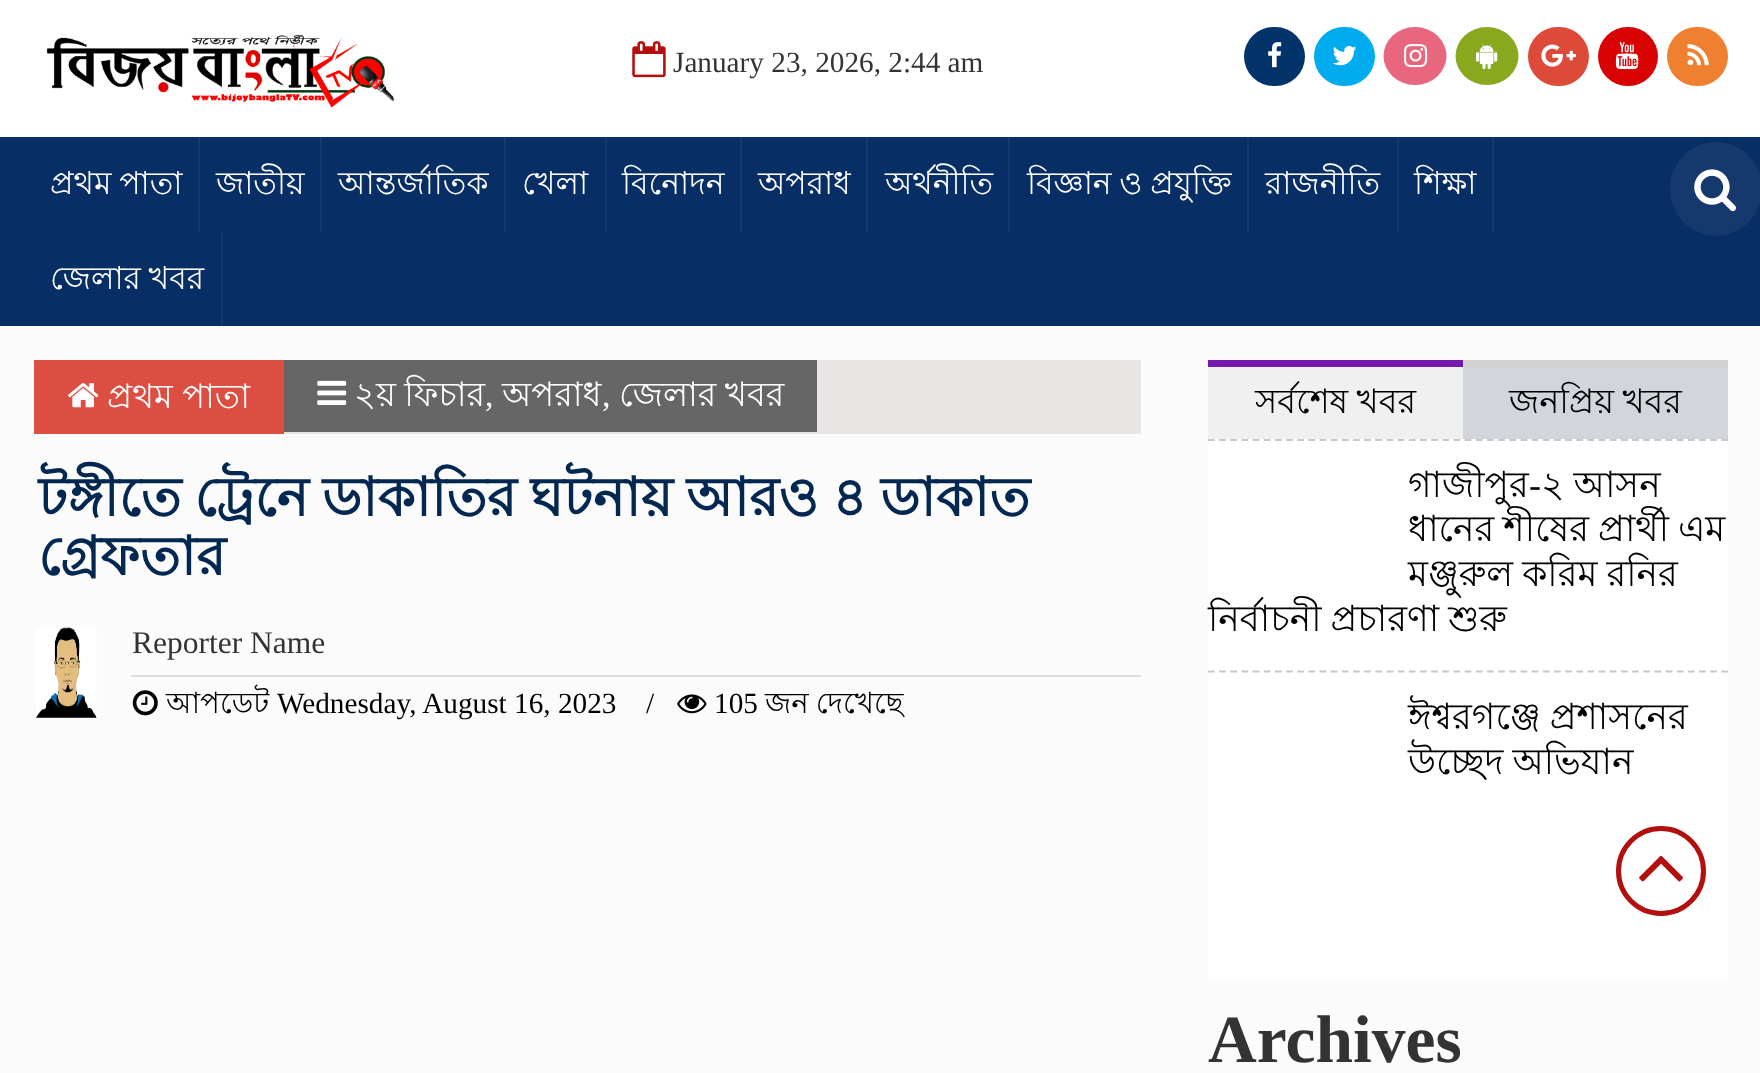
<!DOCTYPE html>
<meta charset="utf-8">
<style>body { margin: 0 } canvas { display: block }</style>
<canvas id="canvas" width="1760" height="1073"></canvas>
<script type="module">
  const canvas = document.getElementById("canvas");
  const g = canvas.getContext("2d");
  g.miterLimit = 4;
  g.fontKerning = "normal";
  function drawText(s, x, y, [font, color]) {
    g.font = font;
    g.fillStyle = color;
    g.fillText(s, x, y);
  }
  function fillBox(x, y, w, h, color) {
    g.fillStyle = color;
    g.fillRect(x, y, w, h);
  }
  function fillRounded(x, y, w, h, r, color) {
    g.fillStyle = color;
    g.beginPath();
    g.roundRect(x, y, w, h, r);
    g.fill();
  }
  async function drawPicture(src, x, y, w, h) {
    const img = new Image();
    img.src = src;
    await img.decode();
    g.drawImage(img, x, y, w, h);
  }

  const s1 = ["29.25px Liberation Serif", "#333333"];
  const s2 = ["31.5px Lohit Bengali", "#FFFFFF"];
  const s3 = ["33.75px Lohit Bengali", "#FFFFFF"];
  const s4 = ["33.75px Liberation Serif", "#FFFFFF"];
  const s5 = ["bold 54px Lohit Bengali", "#022751"];
  const s6 = ["31.5px Liberation Serif", "#333333"];
  const s7 = ["29.25px Lohit Bengali", "#000000"];
  const s8 = ["29.25px Liberation Serif", "#000000"];
  const s9 = ["33.75px Lohit Bengali", "#000000"];
  const s10 = ["36px Lohit Bengali", "#000000"];
  const s11 = ["36px Liberation Serif", "#000000"];
  const s12 = ["bold 67.5px Liberation Serif", "#333333"];

  fillBox(0, 0, 1760, 1073, "#FBFBFB");
  fillBox(0, 0, 1760, 137, "#FFFFFF");
  await drawPicture("pic1.png", 46, 34, 349, 74);
  await drawPicture("pic2.png", 632, 41, 34, 37);
  drawText("January 23, 2026, 2:44 am", 673, 72, s1);
  fillRounded(1244, 27, 61, 59, 29.5, "#023369");
  await drawPicture("pic3.png", 1268, 42, 14, 26);
  fillRounded(1314, 27, 61, 59, 29.5, "#00ACEE");
  await drawPicture("pic4.png", 1332, 46, 25, 20);
  g.fillStyle = "#E9667F";
  g.beginPath();
  g.ellipse(1415, 56, 31.5, 29, 0, 0, Math.PI * 2);
  g.fill();
  await drawPicture("pic5.png", 1404, 44, 24, 24);
  g.fillStyle = "#89A81E";
  g.beginPath();
  g.ellipse(1487, 56, 31.5, 29, 0, 0, Math.PI * 2);
  g.fill();
  await drawPicture("pic6.png", 1476, 44, 22, 26);
  fillRounded(1528, 27, 61, 59, 29.5, "#DD4A3A");
  await drawPicture("pic7.png", 1541, 44, 35, 23);
  fillRounded(1598, 27, 60, 59, 29.5, "#D80202");
  await drawPicture("pic8.png", 1615, 42, 24, 28);
  fillRounded(1667, 27, 61, 59, 29.5, "#EE802F");
  await drawPicture("pic9.png", 1687, 44, 22, 22);
  fillBox(0, 137, 1760, 189, "#082E66");
  fillBox(198, 137, 2, 95, "#15396D");
  g.wordSpacing = "-1px";
  drawText("প্রথম পাতা", 50, 194, s2);
  fillBox(320, 137, 2, 95, "#15396D");
  g.wordSpacing = "0px";
  drawText("জাতীয়", 216, 194, s2);
  fillBox(504, 137, 2, 95, "#15396D");
  drawText("আন্তর্জাতিক", 338, 194, s2);
  fillBox(605, 137, 2, 95, "#15396D");
  drawText("খেলা", 522, 194, s2);
  fillBox(740, 137, 2, 95, "#15396D");
  drawText("বিনোদন", 622, 194, s2);
  fillBox(866, 137, 2, 95, "#15396D");
  drawText("অপরাধ", 758, 194, s2);
  fillBox(1008, 137, 2, 95, "#15396D");
  drawText("অর্থনীতি", 885, 194, s2);
  fillBox(1247, 137, 2, 95, "#15396D");
  g.wordSpacing = "-1px";
  drawText("বিজ্ঞান ও প্রযুক্তি", 1027, 194, s2);
  fillBox(1397, 137, 2, 95, "#15396D");
  g.wordSpacing = "0px";
  drawText("রাজনীতি", 1265, 194, s2);
  fillBox(1492, 137, 2, 95, "#15396D");
  drawText("শিক্ষা", 1414, 194, s2);
  fillBox(221, 232, 2, 94, "#15396D");
  g.wordSpacing = "-1px";
  drawText("জেলার খবর", 50, 289, s2);
  fillRounded(1670, 142, 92, 94, 46, "#15396D");
  await drawPicture("pic10.png", 1694, 169, 42, 43);
  fillBox(284, 360, 857, 74, "#EAE5E5");
  fillBox(34, 360, 250, 74, "#DC4E41");
  await drawPicture("pic11.png", 68, 383, 31, 25);
  g.wordSpacing = "0px";
  drawText("প্রথম পাতা", 107, 408, s3);
  fillBox(284, 360, 533, 72, "#666666");
  await drawPicture("pic12.png", 317, 380, 30, 25);
  g.wordSpacing = "-1px";
  drawText("২য় ফিচার", 354, 406, s3);
  g.wordSpacing = "0px";
  drawText(",", 485, 406, s4);
  drawText("অপরাধ", 502, 406, s3);
  drawText(",", 602, 406, s4);
  g.wordSpacing = "-1px";
  drawText("জেলার খবর", 619, 406, s3);
  g.wordSpacing = "-1.5px";
  drawText("টঙ্গীতে ট্রেনে ডাকাতির ঘটনায় আরও ৪ ডাকাত", 38, 516, s5);
  g.wordSpacing = "0px";
  drawText("গ্রেফতার", 38, 575, s5);
  await drawPicture("pic13.png", 36, 627, 61, 91);
  fillBox(131, 675, 1010, 2, "#DDDDDD");
  drawText("Reporter Name", 132, 653, s6);
  await drawPicture("pic14.png", 132, 690, 26, 26);
  drawText("আপডেট", 166, 713, s7);
  drawText("Wednesday, August 16, 2023", 277, 713, s8);
  drawText("/", 646, 713, s8);
  await drawPicture("pic15.png", 677, 694, 30, 20);
  drawText("105", 714, 713, s8);
  g.wordSpacing = "-1px";
  drawText("জন দেখেছে", 765, 713, s7);
  fillBox(1208, 439, 520, 540, "#FFFFFF");
  fillBox(1463, 367, 265, 72, "#D2D5DB");
  fillBox(1208, 367, 255, 72, "#F0F0F0");
  fillBox(1208, 360, 255, 7, "#7719AA");
  drawText("সর্বশেষ খবর", 1255, 413, s9);
  fillBox(1463, 360, 265, 7, "#D2D2D2");
  drawText("জনপ্রিয় খবর", 1509, 413, s9);
  g.save();
  g.beginPath();
  g.rect(1208, 439, 520, 540);
  g.clip();
  g.beginPath();
  g.moveTo(1208, 440);
  g.lineTo(1728, 440);
  g.strokeStyle = "#C8C8C8";
  g.lineWidth = 2.2;
  g.setLineDash([6.75, 4.41]);
  g.stroke();
  g.restore();
  g.wordSpacing = "0px";
  drawText("গাজীপুর", 1408, 497, s10);
  drawText("-", 1529, 497, s11);
  g.wordSpacing = "-1px";
  drawText("২ আসন", 1541, 497, s10);
  drawText("ধানের শীষের প্রার্থী এম", 1408, 541, s10);
  drawText("মঞ্জুরুল করিম রনির", 1408, 586, s10);
  drawText("নির্বাচনী প্রচারণা শুরু", 1208, 631, s10);
  g.beginPath();
  g.moveTo(1208, 671.5);
  g.lineTo(1728, 671.5);
  g.strokeStyle = "#C8C8C8";
  g.lineWidth = 2.2;
  g.setLineDash([6.75, 4.41]);
  g.stroke();
  drawText("ঈশ্বরগঞ্জে প্রশাসনের", 1408, 729, s10);
  drawText("উচ্ছেদ অভিযান", 1408, 774, s10);
  g.wordSpacing = "0px";
  drawText("Archives", 1208, 1062, s12);
  g.beginPath();
  g.arc(1661, 871, 42.5, 0, Math.PI * 2);
  g.strokeStyle = "#B30F0F";
  g.lineWidth = 5;
  g.setLineDash([]);
  g.stroke();
  await drawPicture("pic16.png", 1639, 855, 44, 27);
</script>
